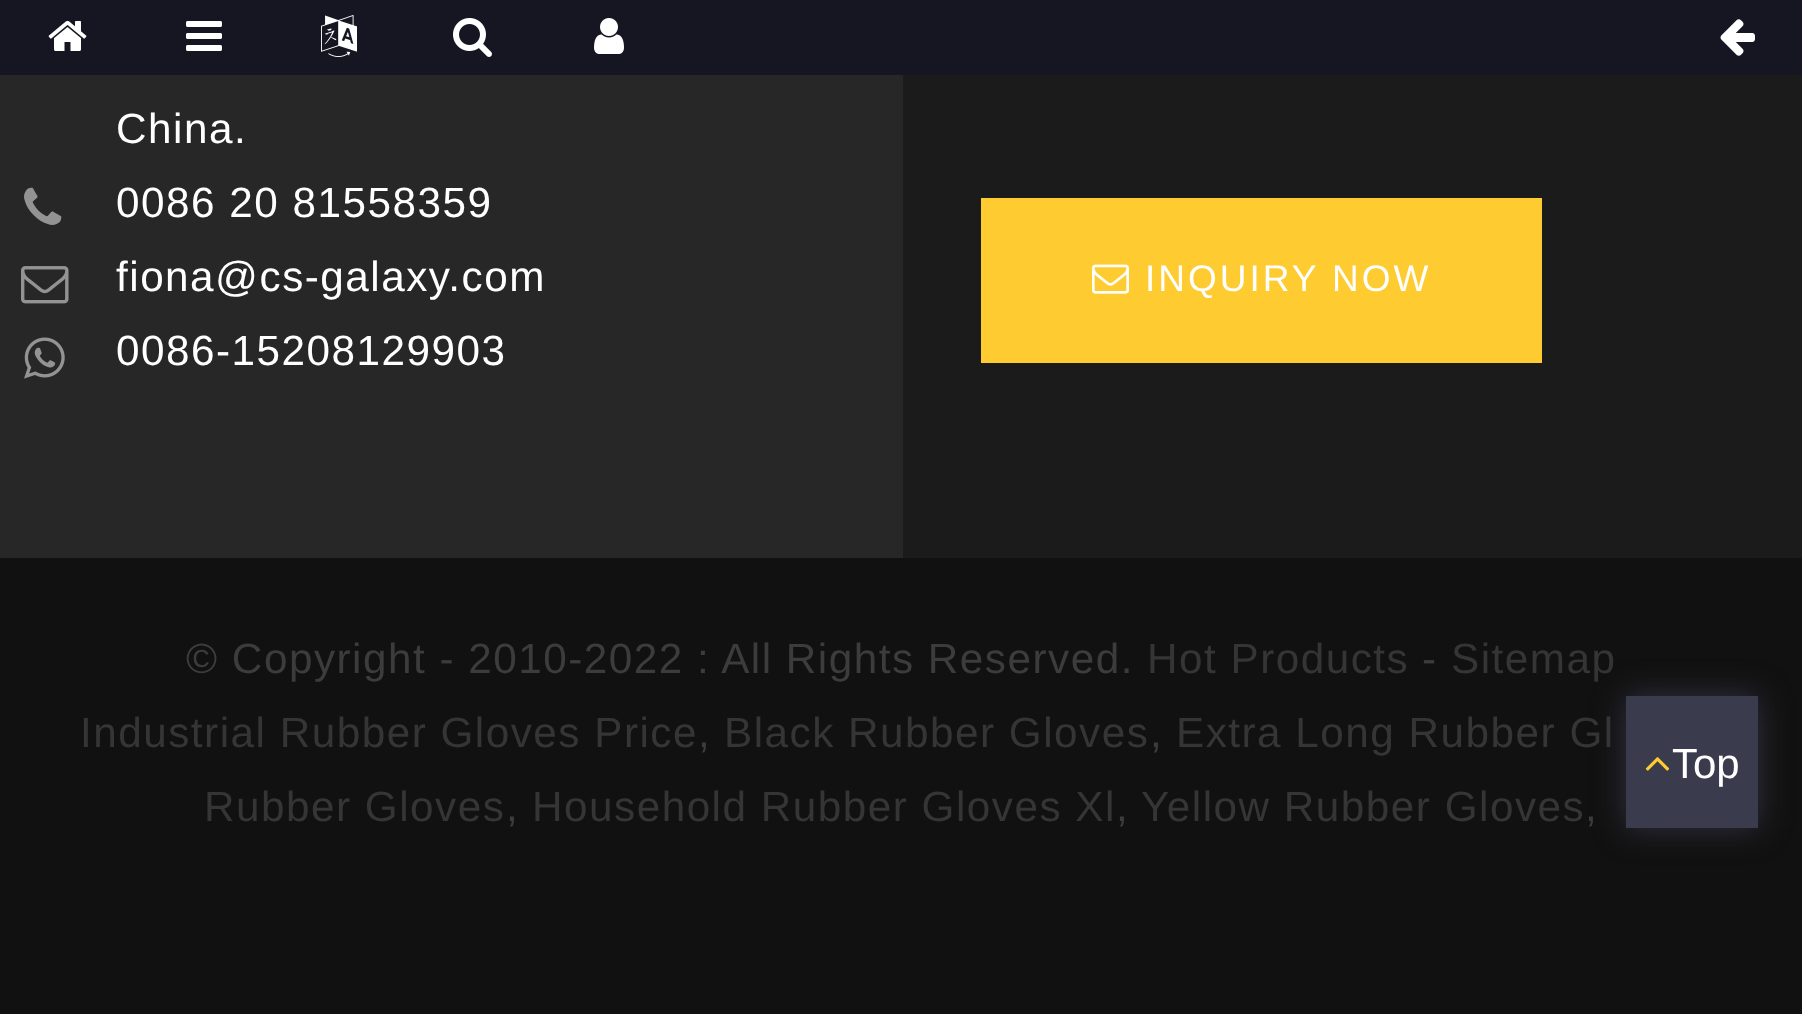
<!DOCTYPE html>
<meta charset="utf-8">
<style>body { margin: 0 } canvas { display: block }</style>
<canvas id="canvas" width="1802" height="1014"></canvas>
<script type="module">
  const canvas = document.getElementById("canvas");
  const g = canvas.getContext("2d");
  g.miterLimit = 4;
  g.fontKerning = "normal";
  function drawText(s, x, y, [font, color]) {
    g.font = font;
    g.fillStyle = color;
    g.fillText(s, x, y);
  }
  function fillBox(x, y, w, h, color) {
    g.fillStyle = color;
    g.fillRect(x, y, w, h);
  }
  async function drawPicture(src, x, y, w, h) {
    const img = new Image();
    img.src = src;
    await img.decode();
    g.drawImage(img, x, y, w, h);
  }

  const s1 = ["42.25px Liberation Sans", "#FFFFFF"];
  const s2 = ["37px Liberation Sans", "#FFFFFF"];
  const s3 = ["42.25px Liberation Sans", "#3C3C3C"];
  const s4 = ["42.25px Liberation Sans", "#353535"];
  const s5 = ["42px Liberation Sans", "#FFFFFF"];

  fillBox(0, 0, 1802, 1014, "#272727");
  fillBox(0, 0, 1802, 75, "#161622");
  await drawPicture("pic1.png", 48, 20, 39, 31);
  await drawPicture("pic2.png", 186, 21, 36, 30);
  await drawPicture("pic3.png", 321, 15, 36, 42);
  await drawPicture("pic4.png", 453, 18, 39, 39);
  await drawPicture("pic5.png", 594, 18, 30, 36);
  await drawPicture("pic6.png", 1720, 19, 35, 37);
  fillBox(903, 75, 899, 483, "#1B1B1B");
  g.letterSpacing = "1.5px";
  drawText("China.", 116, 143, s1);
  await drawPicture("pic7.png", 24, 187, 38, 38);
  drawText("0086 20 81558359", 116, 217, s1);
  await drawPicture("pic8.png", 21, 266, 48, 38);
  drawText("fiona@cs-galaxy.com", 116, 291, s1);
  await drawPicture("pic9.png", 24, 337, 41, 42);
  drawText("0086-15208129903", 116, 365, s1);
  fillBox(981, 198, 561, 165, "#FECB31");
  await drawPicture("pic10.png", 1092, 264, 37, 30);
  g.letterSpacing = "3px";
  drawText("INQUIRY NOW", 1145, 291, s2);
  fillBox(0, 558, 1802, 456, "#111111");
  g.letterSpacing = "1.5px";
  drawText("© Copyright - 2010-2022 : All Rights Reserved.", 186, 673, s3);
  drawText("Hot Products", 1147, 673, s4);
  drawText("-", 1422, 673, s3);
  drawText("Sitemap", 1451, 673, s4);
  drawText("Industrial Rubber Gloves Price", 80, 747, s4);
  drawText(",", 698, 747, s3);
  drawText("Black Rubber Gloves", 724, 747, s4);
  drawText(",", 1150, 747, s3);
  drawText("Extra Long Rubber Gl", 1176, 747, s4);
  drawText("Rubber Gloves", 204, 821, s4);
  drawText(",", 506, 821, s3);
  drawText("Household Rubber Gloves Xl", 532, 821, s4);
  drawText(",", 1116, 821, s3);
  drawText("Yellow Rubber Gloves", 1141, 821, s4);
  drawText(",", 1585, 821, s3);
  g.fillStyle = "rgba(58, 59, 77, 0.8)";
  g.filter = "blur(16px)";
  g.beginPath();
  g.rect(1626, 696, 132, 132);
  g.fill();
  g.filter = "none";
  fillBox(1626, 696, 132, 132, "#3A3B4D");
  await drawPicture("pic11.png", 1645, 757, 25, 14);
  g.letterSpacing = "0px";
  drawText("Top", 1672, 778, s5);
</script>
